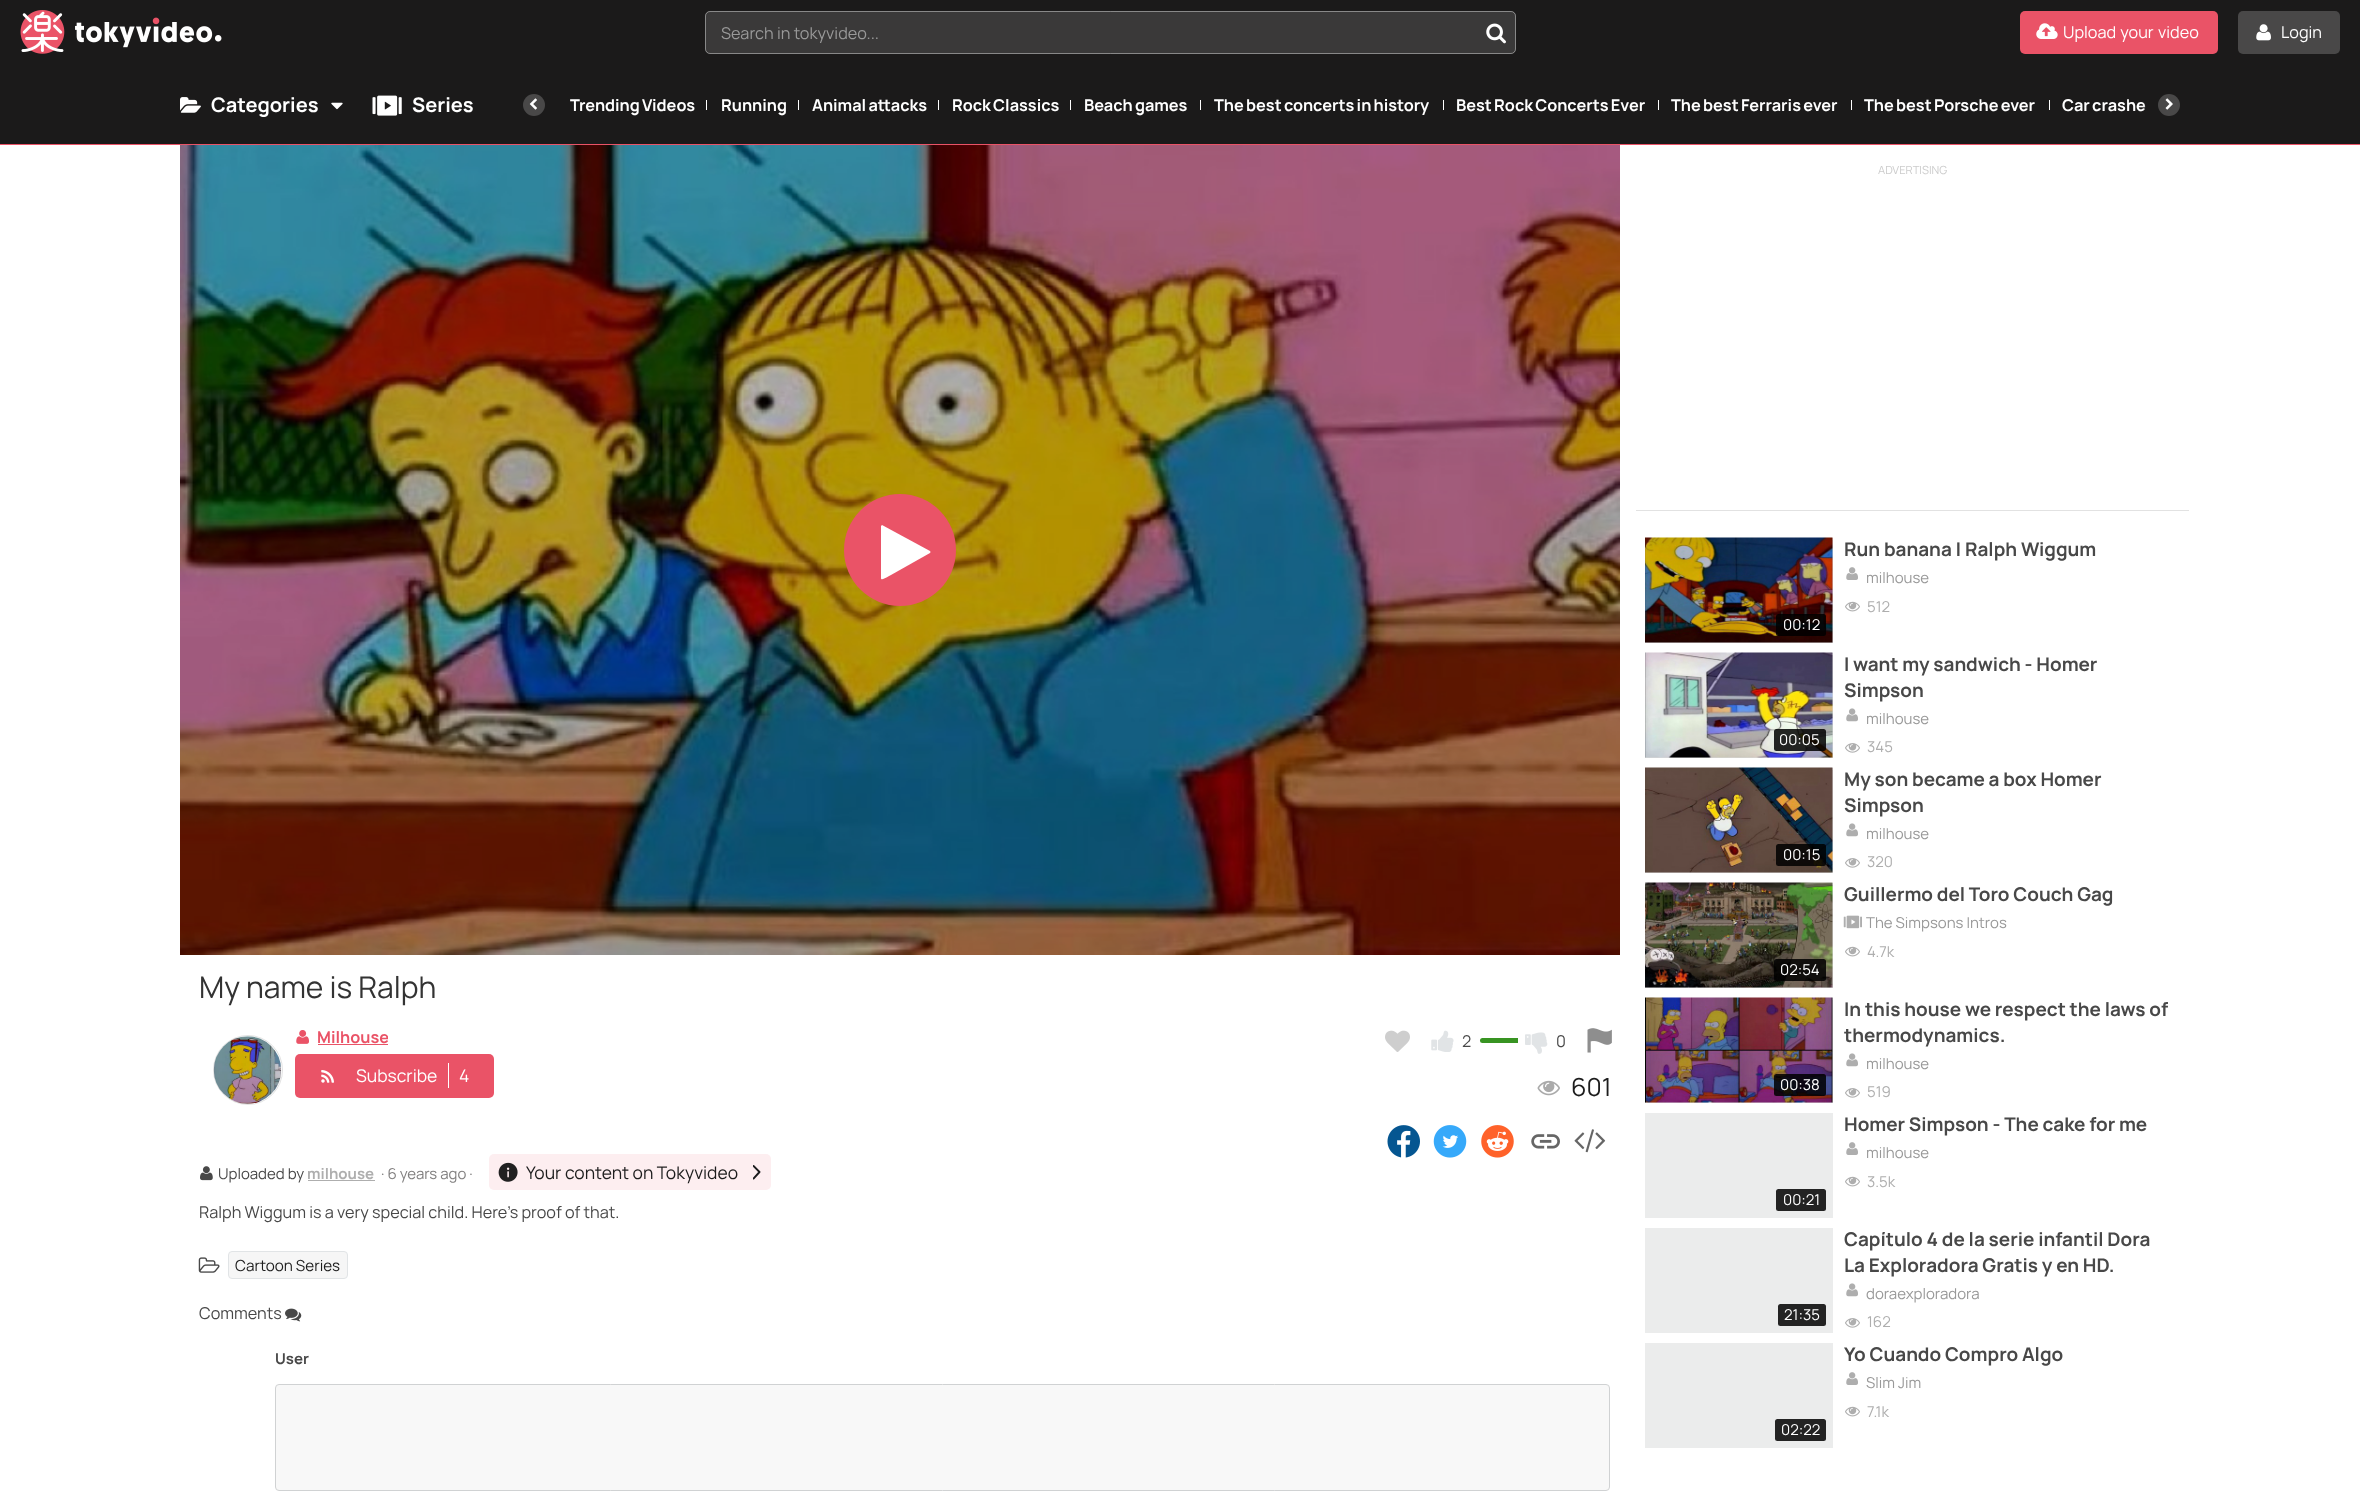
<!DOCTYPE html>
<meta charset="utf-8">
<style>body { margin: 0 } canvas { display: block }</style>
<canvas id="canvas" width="2360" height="1496"></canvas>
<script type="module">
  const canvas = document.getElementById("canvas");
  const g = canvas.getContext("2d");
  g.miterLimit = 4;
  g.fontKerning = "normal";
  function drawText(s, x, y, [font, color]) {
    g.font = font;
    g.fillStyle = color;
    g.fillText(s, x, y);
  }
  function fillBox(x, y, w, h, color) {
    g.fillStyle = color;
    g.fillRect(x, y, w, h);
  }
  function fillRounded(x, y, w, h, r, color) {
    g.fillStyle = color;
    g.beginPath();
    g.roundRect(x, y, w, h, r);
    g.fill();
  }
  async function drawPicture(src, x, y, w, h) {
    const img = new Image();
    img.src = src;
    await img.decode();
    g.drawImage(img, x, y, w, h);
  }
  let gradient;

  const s1 = ["16.25px Manrope", "#999999"];
  const s2 = ["16.25px Manrope", "#FFFFFF"];
  const s3 = ["bold 20px Manrope", "#FFFFFF"];
  const s4 = ["bold 16.25px Manrope", "#FFFFFF"];
  const s5 = ["11.25px Manrope", "#CCCCCC"];
  const s6 = ["bold 18.9px Manrope", "#484848"];
  const s7 = ["15px Manrope", "#999999"];
  const s8 = ["15px Manrope", "#AEAEAE"];
  const s9 = ["15px Manrope", "#FFFFFF"];
  const s10 = ["30px Manrope", "#333333"];
  const s11 = ["bold 16.25px Manrope", "#EA5367"];
  const s12 = ["17.5px Manrope", "#FFFFFF"];
  const s13 = ["16.25px Manrope", "#484848"];
  const s14 = ["25px Manrope", "#1D1D1D"];
  const s15 = ["15px Manrope", "#484848"];
  const s16 = ["bold 15px Manrope", "#AEAEAE"];
  const s17 = ["15px Manrope", "#828080"];
  const s18 = ["17.5px Manrope", "#1D1D1D"];
  const s19 = ["15.25px Manrope", "#1D1D1D"];
  const s20 = ["bold 15px Manrope", "#484848"];

  fillBox(0, 0, 2360, 1496, "#FFFFFF");
  fillBox(0, 0, 2360, 144, "#1B1A1A");
  await drawPicture("pic1.png", 20, 10, 202, 44);
  fillRounded(705, 11, 811, 43, 5, "#3A3939");
  g.beginPath();
  g.roundRect(705.5, 11.5, 810, 42, 4.5);
  g.strokeStyle = "rgba(255, 255, 255, 0.4)";
  g.stroke();
  drawText("Search in tokyvideo...", 721, 39, s1);
  await drawPicture("pic2.png", 1486, 23, 20, 21);
  fillRounded(2020, 11, 198, 43, 5, "#EA5367");
  await drawPicture("pic3.png", 2036, 23, 22, 16);
  g.wordSpacing = "1px";
  drawText("Upload your video", 2063, 38, s2);
  fillRounded(2238, 11, 102, 43, 5, "#494848");
  await drawPicture("pic4.png", 2256, 24, 15, 17);
  g.wordSpacing = "0px";
  drawText("Login", 2281, 38, s2);
  fillBox(0, 144, 2360, 1, "#EA5367");
  await drawPicture("pic5.png", 180, 97, 21, 16);
  drawText("Categories", 211, 112, s3);
  await drawPicture("pic6.png", 331, 102, 12, 8);
  await drawPicture("pic7.png", 372, 95, 30, 21);
  drawText("Series", 412, 112, s3);
  g.fillStyle = "#494848";
  g.beginPath();
  g.arc(534, 105, 11, 0, Math.PI * 2);
  g.fill();
  await drawPicture("pic8.png", 529, 98, 8, 12);
  g.wordSpacing = "-1px";
  drawText("Trending Videos", 570, 111, s4);
  fillBox(706, 100, 1, 10, "#FFFFFF");
  g.wordSpacing = "0px";
  drawText("Running", 721, 111, s4);
  fillBox(798, 100, 1, 10, "#FFFFFF");
  g.wordSpacing = "-1px";
  drawText("Animal attacks", 812, 111, s4);
  fillBox(938, 100, 1, 10, "#FFFFFF");
  drawText("Rock Classics", 952, 111, s4);
  fillBox(1070, 100, 1, 10, "#FFFFFF");
  drawText("Beach games", 1084, 111, s4);
  fillBox(1200, 100, 1, 10, "#FFFFFF");
  drawText("The best concerts in history", 1214, 111, s4);
  fillBox(1443, 100, 1, 10, "#FFFFFF");
  drawText("Best Rock Concerts Ever", 1456, 111, s4);
  fillBox(1658, 100, 1, 10, "#FFFFFF");
  drawText("The best Ferraris ever", 1671, 111, s4);
  fillBox(1851, 100, 1, 10, "#FFFFFF");
  drawText("The best Porsche ever", 1864, 111, s4);
  fillBox(2049, 100, 1, 10, "#FFFFFF");
  drawText("Car crashe", 2062, 111, s4);
  gradient = g.createLinearGradient(2180, 104, 2143, 104);
  gradient.addColorStop(0.73, "#1B1A1A");
  gradient.addColorStop(1, "rgba(27, 26, 26, 0)");
  g.fillStyle = gradient;
  g.fillRect(2143, 102, 3, 9);
  g.fillStyle = "#494848";
  g.beginPath();
  g.arc(2169, 105, 11, 0, Math.PI * 2);
  g.fill();
  await drawPicture("pic9.png", 2165, 98, 8, 12);
  await drawPicture("pic10.png", 180, 145, 1440, 810);
  g.fillStyle = "#EA5367";
  g.beginPath();
  g.arc(900, 550, 56, 0, Math.PI * 2);
  g.fill();
  g.fillStyle = "#FFFFFF";
  g.beginPath();
  g.moveTo(930, 553);
  g.lineTo(891, 575);
  g.bezierCurveTo(882, 580, 881, 580, 881, 578);
  g.lineTo(881, 526);
  g.lineTo(882, 525);
  g.lineTo(930, 551);
  g.bezierCurveTo(931, 552, 930, 553, 930, 553);
  g.closePath();
  g.fill();
  g.wordSpacing = "0px";
  drawText("ADVERTISING", 1878, 174, s5);
  fillBox(1636, 510, 553, 1, "#E2E2E2");
  drawText("Run banana | Ralph Wiggum", 1844, 556, s6);
  await drawPicture("pic11.png", 1846, 567, 12, 13);
  drawText("milhouse", 1866, 583, s7);
  await drawPicture("pic12.png", 1845, 601, 15, 11);
  drawText("512", 1867, 612, s8);
  fillBox(1645, 538, 188, 105, "#EBECEC");
  g.save();
  g.beginPath();
  g.rect(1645, 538, 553, 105);
  g.clip();
  g.fillStyle = "rgba(135, 135, 135, 0.18)";
  g.filter = "blur(0.5px)";
  g.beginPath();
  g.rect(1645, 540, 188, 105);
  g.fill();
  g.filter = "none";
  g.restore();
  await drawPicture("pic13.png", 1645, 537, 188, 106);
  fillRounded(1776, 614, 50, 22, 2.5, "rgba(0, 0, 0, 0.85)");
  drawText("00:12", 1783, 630, s9);
  fillBox(1645, 653, 188, 105, "#EBECEC");
  g.save();
  g.beginPath();
  g.rect(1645, 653, 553, 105);
  g.clip();
  g.fillStyle = "rgba(135, 135, 135, 0.18)";
  g.filter = "blur(0.5px)";
  g.beginPath();
  g.rect(1645, 655, 188, 105);
  g.fill();
  g.filter = "none";
  g.restore();
  await drawPicture("pic14.png", 1645, 652, 188, 106);
  fillRounded(1774, 729, 52, 22, 2.5, "rgba(0, 0, 0, 0.85)");
  drawText("00:05", 1779, 745, s9);
  drawText("I want my sandwich - Homer", 1844, 671, s6);
  drawText("Simpson", 1844, 697, s6);
  await drawPicture("pic15.png", 1846, 708, 12, 14);
  drawText("milhouse", 1866, 724, s7);
  await drawPicture("pic16.png", 1845, 743, 15, 10);
  drawText("345", 1867, 752, s8);
  fillBox(1645, 768, 188, 105, "#EBECEC");
  g.save();
  g.beginPath();
  g.rect(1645, 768, 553, 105);
  g.clip();
  g.fillStyle = "rgba(135, 135, 135, 0.18)";
  g.filter = "blur(0.5px)";
  g.beginPath();
  g.rect(1645, 770, 188, 105);
  g.fill();
  g.filter = "none";
  g.restore();
  await drawPicture("pic17.png", 1645, 767, 188, 106);
  fillRounded(1776, 844, 50, 22, 2.5, "rgba(0, 0, 0, 0.85)");
  drawText("00:15", 1783, 860, s9);
  drawText("My son became a box Homer", 1844, 786, s6);
  drawText("Simpson", 1844, 812, s6);
  await drawPicture("pic15.png", 1846, 823, 12, 14);
  drawText("milhouse", 1866, 839, s7);
  await drawPicture("pic16.png", 1845, 858, 15, 10);
  drawText("320", 1867, 867, s8);
  drawText("Guillermo del Toro Couch Gag", 1844, 901, s6);
  await drawPicture("pic18.png", 1843, 915, 19, 14);
  drawText("The Simpsons Intros", 1866, 928, s7);
  await drawPicture("pic12.png", 1845, 946, 15, 11);
  drawText("4.7k", 1867, 957, s8);
  fillBox(1645, 883, 188, 105, "#EBECEC");
  g.save();
  g.beginPath();
  g.rect(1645, 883, 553, 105);
  g.clip();
  g.fillStyle = "rgba(135, 135, 135, 0.18)";
  g.filter = "blur(0.5px)";
  g.beginPath();
  g.rect(1645, 885, 188, 105);
  g.fill();
  g.filter = "none";
  g.restore();
  await drawPicture("pic19.png", 1645, 882, 188, 106);
  fillRounded(1774, 959, 52, 22, 2.5, "rgba(0, 0, 0, 0.85)");
  drawText("02:54", 1780, 975, s9);
  fillBox(1645, 998, 188, 105, "#EBECEC");
  g.save();
  g.beginPath();
  g.rect(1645, 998, 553, 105);
  g.clip();
  g.fillStyle = "rgba(135, 135, 135, 0.18)";
  g.filter = "blur(0.5px)";
  g.beginPath();
  g.rect(1645, 1000, 188, 105);
  g.fill();
  g.filter = "none";
  g.restore();
  await drawPicture("pic20.png", 1645, 997, 188, 106);
  fillRounded(1774, 1074, 52, 22, 2.5, "rgba(0, 0, 0, 0.85)");
  drawText("00:38", 1780, 1090, s9);
  drawText("In this house we respect the laws of", 1844, 1016, s6);
  drawText("thermodynamics.", 1844, 1042, s6);
  await drawPicture("pic15.png", 1846, 1053, 12, 14);
  drawText("milhouse", 1866, 1069, s7);
  await drawPicture("pic16.png", 1845, 1088, 15, 10);
  drawText("519", 1867, 1097, s8);
  drawText("Homer Simpson - The cake for me", 1844, 1131, s6);
  await drawPicture("pic21.png", 1846, 1142, 12, 13);
  drawText("milhouse", 1866, 1158, s7);
  await drawPicture("pic22.png", 1845, 1176, 15, 11);
  drawText("3.5k", 1867, 1187, s8);
  fillBox(1645, 1113, 188, 105, "#EBECEC");
  fillRounded(1776, 1189, 50, 22, 2.5, "#232323");
  drawText("00:21", 1783, 1205, s9);
  fillBox(1645, 1228, 188, 105, "#EBECEC");
  fillRounded(1778, 1304, 48, 22, 2.5, "#232323");
  drawText("21:35", 1784, 1320, s9);
  drawText("Capítulo 4 de la serie infantil Dora", 1844, 1246, s6);
  drawText("La Exploradora Gratis y en HD.", 1844, 1272, s6);
  await drawPicture("pic23.png", 1846, 1283, 12, 14);
  drawText("doraexploradora", 1866, 1299, s7);
  await drawPicture("pic24.png", 1845, 1318, 15, 10);
  drawText("162", 1867, 1327, s8);
  drawText("Yo Cuando Compro Algo", 1844, 1361, s6);
  await drawPicture("pic21.png", 1846, 1372, 12, 13);
  drawText("Slim Jim", 1866, 1388, s7);
  await drawPicture("pic22.png", 1845, 1406, 15, 11);
  drawText("7.1k", 1867, 1417, s8);
  fillBox(1645, 1343, 188, 105, "#EBECEC");
  fillRounded(1775, 1419, 51, 22, 2.5, "#232323");
  drawText("02:22", 1781, 1435, s9);
  drawText("My name is Ralph", 199, 998, s10);
  g.beginPath();
  g.arc(248, 1070, 34.5, 0, Math.PI * 2);
  g.strokeStyle = "#E2E2E2";
  g.stroke();
  await drawPicture("pic25.png", 213, 1036, 69, 68);
  await drawPicture("pic26.png", 296, 1030, 13, 14);
  g.save();
  g.beginPath();
  g.rect(318, 1024, 70, 26);
  g.clip();
  drawText("Milhouse", 317, 1043, s11);
  g.restore();
  fillBox(318, 1044, 70, 1, "#EA5367");
  fillRounded(295, 1054, 199, 44, 5, "#EA5367");
  await drawPicture("pic27.png", 321, 1070, 13, 13);
  drawText("Subscribe", 356, 1082, s12);
  fillBox(448, 1063, 1, 25, "#FFFFFF");
  drawText("4", 459, 1082, s12);
  await drawPicture("pic28.png", 1385, 1030, 25, 22);
  await drawPicture("pic29.png", 1431, 1030, 23, 22);
  drawText("2", 1462, 1047, s13);
  g.fillStyle = "#389422";
  g.beginPath();
  g.roundRect(1480, 1038, 38, 5, [2.5, 0, 0, 2.5]);
  g.fill();
  await drawPicture("pic30.png", 1525, 1032, 23, 22);
  drawText("0", 1556, 1047, s13);
  await drawPicture("pic31.png", 1587, 1028, 25, 25);
  await drawPicture("pic32.png", 1537, 1080, 23, 16);
  drawText("601", 1571, 1096, s14);
  await drawPicture("pic33.png", 1387, 1125, 33, 33);
  await drawPicture("pic34.png", 1433, 1125, 34, 33);
  await drawPicture("pic35.png", 1481, 1125, 33, 33);
  await drawPicture("pic36.png", 1531, 1134, 29, 15);
  await drawPicture("pic37.png", 1574, 1129, 32, 24);
  await drawPicture("pic38.png", 200, 1166, 13, 15);
  drawText("Uploaded by", 218, 1179, s15);
  drawText("milhouse", 307, 1179, s16);
  fillBox(308, 1180, 67, 1, "#AEAEAE");
  drawText("· 6 years ago ·", 381, 1179, s17);
  fillRounded(489, 1154, 282, 36, 5, "#FDEEF0");
  await drawPicture("pic39.png", 498, 1162, 20, 20);
  drawText("Your content on Tokyvideo", 526, 1179, s18);
  g.save();
  g.beginPath();
  g.rect(753, 1165, 8, 15);
  g.clip();
  g.beginPath();
  g.moveTo(753.5, 1166);
  g.lineTo(759.5, 1172);
  g.lineTo(753.5, 1178.5);
  g.strokeStyle = "#1B1C1D";
  g.lineWidth = 1.9;
  g.lineCap = "round";
  g.lineJoin = "round";
  g.stroke();
  g.restore();
  drawText("Ralph Wiggum is a very special child. Here's proof of that.", 199, 1218, s13);
  await drawPicture("pic40.png", 198, 1257, 22, 16);
  g.fillStyle = "#F6F6F6";
  g.beginPath();
  g.roundRect(228.5, 1251.5, 119, 27, 3.5);
  g.fill();
  g.strokeStyle = "#E1E4E6";
  g.stroke();
  drawText("Cartoon Series", 235, 1271, s19);
  drawText("Comments", 199, 1319, s13);
  await drawPicture("pic41.png", 285, 1308, 17, 14);
  drawText("User", 275, 1364, s20);
  g.fillStyle = "#F8F8F8";
  g.beginPath();
  g.roundRect(275.5, 1384.5, 1334, 106, 3.5);
  g.fill();
  g.strokeStyle = "#D0D2D3";
  g.stroke();
</script>
